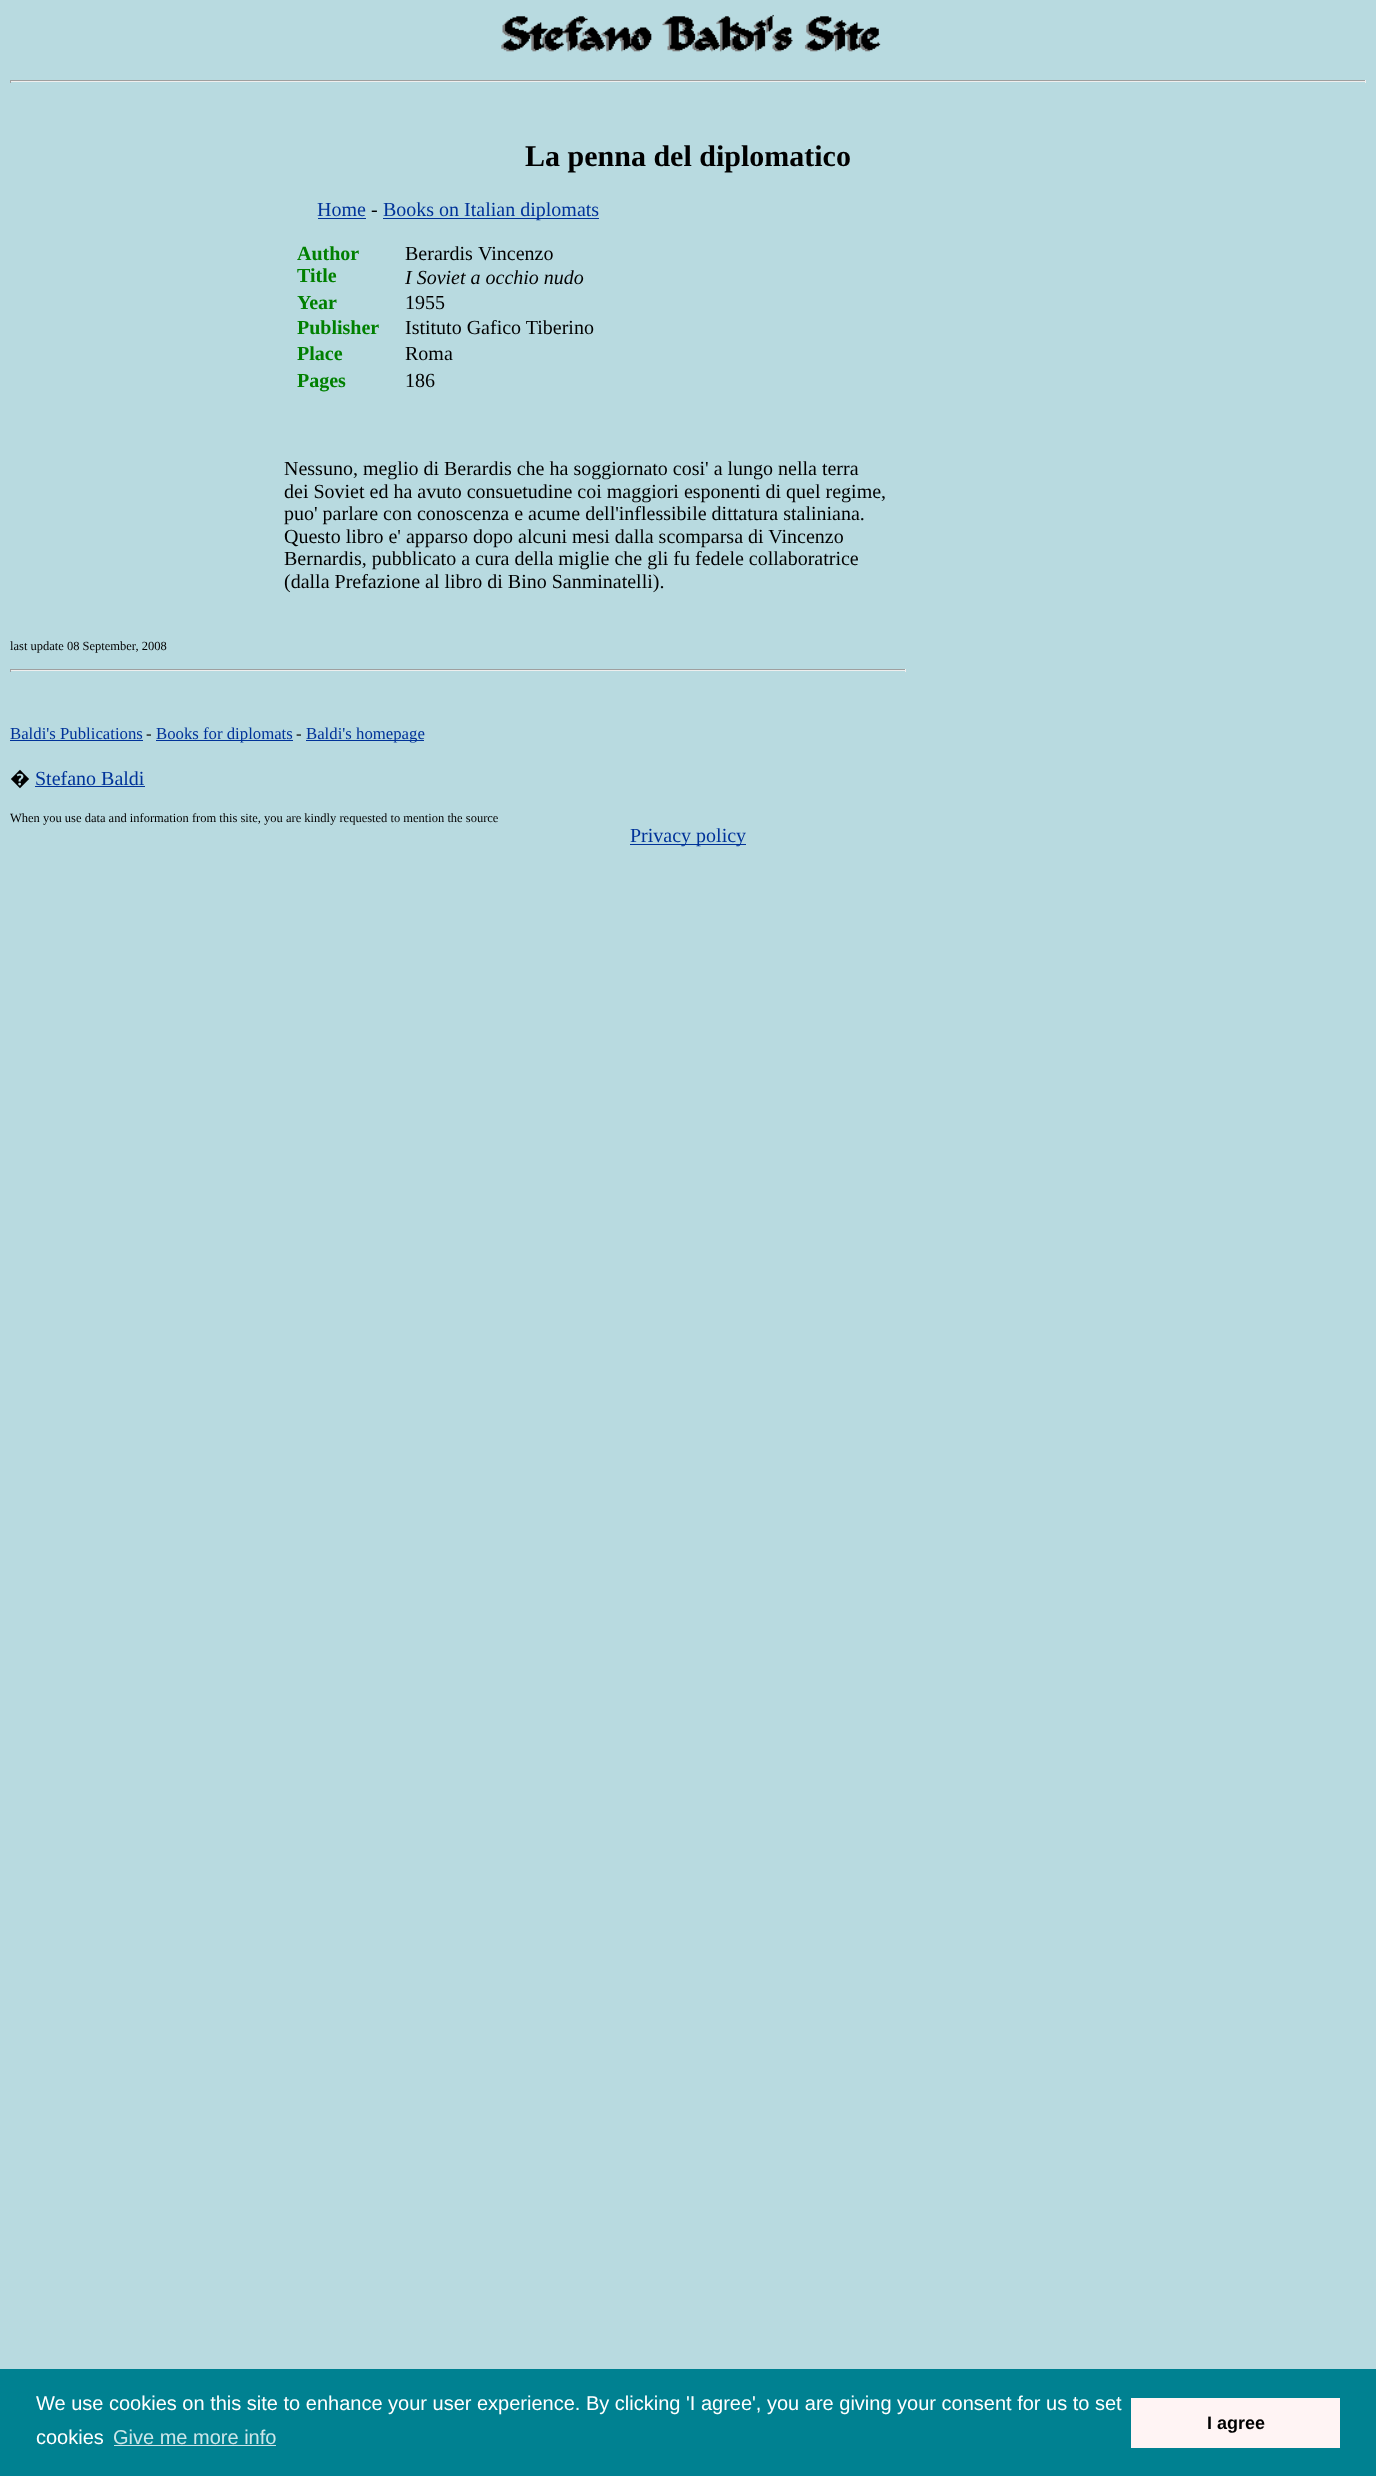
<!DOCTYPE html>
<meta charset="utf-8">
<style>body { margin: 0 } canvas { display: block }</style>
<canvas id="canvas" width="1376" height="2476"></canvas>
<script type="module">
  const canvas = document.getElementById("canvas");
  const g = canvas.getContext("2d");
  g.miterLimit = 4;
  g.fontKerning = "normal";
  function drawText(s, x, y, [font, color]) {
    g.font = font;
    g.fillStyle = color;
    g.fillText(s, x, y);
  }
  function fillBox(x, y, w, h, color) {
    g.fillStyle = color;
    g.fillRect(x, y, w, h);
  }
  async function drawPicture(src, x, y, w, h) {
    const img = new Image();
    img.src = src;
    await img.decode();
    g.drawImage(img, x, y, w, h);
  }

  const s1 = ["bold 30px Liberation Serif", "#000000"];
  const s2 = ["20px Liberation Serif", "#003399"];
  const s3 = ["20px Liberation Serif", "#000000"];
  const s4 = ["bold 20px Liberation Serif", "#008000"];
  const s5 = ["italic 20px Liberation Serif", "#000000"];
  const s6 = ["12.5px Liberation Serif", "#000000"];
  const s7 = ["16.75px Liberation Serif", "#003399"];
  const s8 = ["16.75px Liberation Serif", "#000000"];
  const s9 = ["20px Noto Sans", "#000000"];
  const s10 = ["20px Liberation Sans", "#FFFFFF"];
  const s11 = ["20px Liberation Sans", "#CCE6E9"];
  const s12 = ["bold 18px Liberation Sans", "#000000"];

  fillBox(0, 0, 1376, 2476, "#B8DAE0");
  await drawPicture("pic1.png", 501, 14, 380, 38);
  fillBox(10, 80, 1356, 1, "#9F9F9F");
  fillBox(1365, 80, 1, 3, "#EEEEEE");
  fillBox(10, 81, 1356, 1, "#EEEEEE");
  fillBox(10, 80, 1, 3, "#9F9F9F");
  drawText("La penna del diplomatico", 525, 166, s1);
  drawText("Home", 317, 216, s2);
  fillBox(318, 218, 48, 1, "#003399");
  drawText("-", 371, 216, s3);
  fillBox(383, 218, 216, 1, "#003399");
  drawText("Books on Italian diplomats", 383, 216, s2);
  drawText("Author", 297, 260, s4);
  drawText("Berardis", 405, 260, s3);
  drawText("Vincenzo", 478, 260, s3);
  drawText("Title", 297, 282, s4);
  drawText("I Soviet a occhio nudo", 405, 284, s5);
  drawText("Year", 297, 309, s4);
  drawText("1955", 405, 309, s3);
  drawText("Publisher", 297, 334, s4);
  drawText("Istituto Gafico Tiberino", 405, 334, s3);
  drawText("Place", 297, 360, s4);
  drawText("Roma", 405, 360, s3);
  drawText("Pages", 297, 387, s4);
  drawText("186", 405, 387, s3);
  drawText("Nessuno, meglio di Berardis che ha soggiornato cosi' a lungo nella terra", 284, 475, s3);
  drawText("dei Soviet ed ha avuto consuetudine coi maggiori esponenti di quel regime,", 284, 498, s3);
  drawText("puo' parlare con conoscenza e acume dell'inflessibile dittatura staliniana.", 284, 520, s3);
  drawText("Questo libro e' apparso dopo alcuni mesi dalla scomparsa di Vincenzo", 284, 543, s3);
  drawText("Bernardis, pubblicato a cura della miglie che gli fu fedele collaboratrice", 284, 565, s3);
  drawText("(dalla Prefazione al libro di Bino Sanminatelli).", 284, 588, s3);
  drawText("last update 08 September, 2008", 10, 650, s6);
  fillBox(10, 669, 896, 1, "#9F9F9F");
  fillBox(905, 669, 1, 3, "#EEEEEE");
  fillBox(10, 670, 896, 1, "#EEEEEE");
  fillBox(10, 669, 1, 3, "#9F9F9F");
  drawText("Baldi's Publications", 10, 739, s7);
  fillBox(10, 740, 133, 1, "#003399");
  drawText("-", 146, 739, s8);
  fillBox(156, 740, 137, 1, "#003399");
  drawText("Books for diplomats", 156, 739, s7);
  drawText("-", 296, 739, s8);
  fillBox(306, 740, 118, 1, "#003399");
  drawText("Baldi's homepage", 306, 739, s7);
  drawText("�", 10, 785, s9);
  drawText("Stefano Baldi", 35, 785, s2);
  fillBox(35, 786, 110, 1, "#003399");
  drawText("When you use data and information from this site, you are kindly requested to mention the source", 10, 822, s6);
  fillBox(630, 844, 116, 1, "#003399");
  drawText("Privacy policy", 630, 842, s2);
  fillBox(0, 2369, 1376, 107, "#008191");
  drawText("We use cookies on this site to enhance your user experience. By clicking 'I agree', you are giving your consent for us to set", 36, 2410, s10);
  drawText("cookies", 36, 2444, s10);
  drawText("Give me more info", 113, 2444, s11);
  fillBox(114, 2445, 162, 1, "#CCE6E9");
  fillBox(1131, 2398, 209, 50, "#FFF4F4");
  drawText("I agree", 1207, 2429, s12);
</script>
